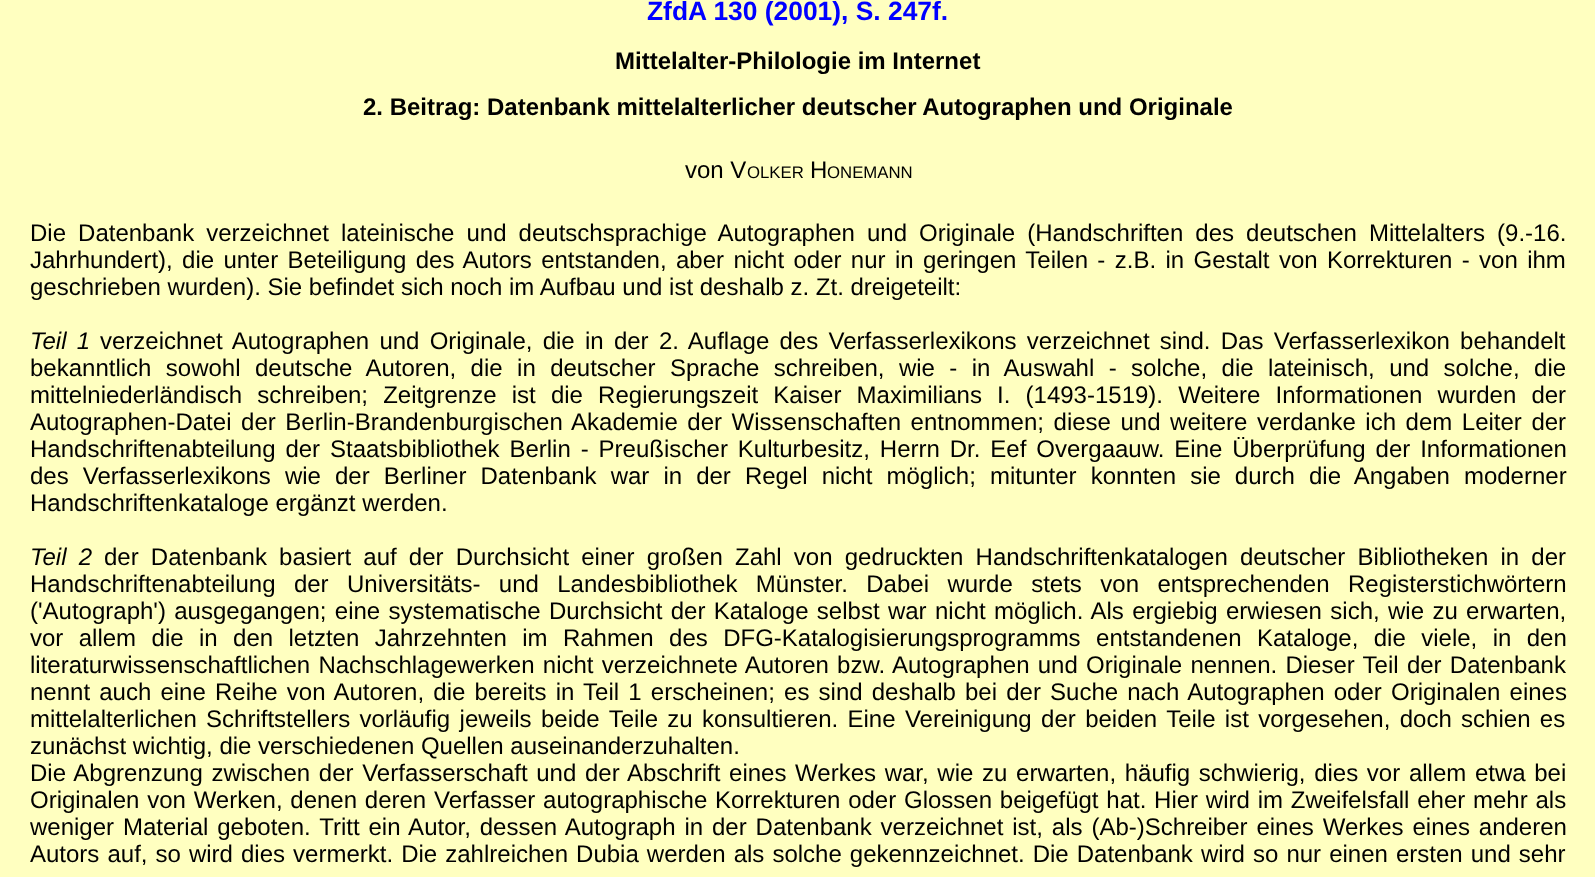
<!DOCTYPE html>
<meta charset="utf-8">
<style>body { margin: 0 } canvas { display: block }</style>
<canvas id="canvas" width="1595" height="877"></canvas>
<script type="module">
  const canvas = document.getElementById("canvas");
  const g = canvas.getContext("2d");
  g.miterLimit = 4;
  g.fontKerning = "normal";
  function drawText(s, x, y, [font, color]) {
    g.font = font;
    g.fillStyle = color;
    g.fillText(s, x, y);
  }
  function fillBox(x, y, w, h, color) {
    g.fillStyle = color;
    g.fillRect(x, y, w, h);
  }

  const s1 = ["bold 26.4px Liberation Sans", "#0000FF"];
  const s2 = ["bold 24px Liberation Sans", "#000000"];
  const s3 = ["24px Liberation Sans", "#000000"];
  const s4 = ["16.75px Liberation Sans", "#000000"];
  const s5 = ["italic 24px Liberation Sans", "#000000"];

  fillBox(0, 0, 1595, 877, "#FFFFC0");
  drawText("ZfdA 130 (2001), S. 247f.", 647, 20, s1);
  drawText("Mittelalter-Philologie im Internet", 615, 69, s2);
  drawText("2. Beitrag: Datenbank mittelalterlicher deutscher Autographen und Originale", 363, 115, s2);
  drawText("von V", 685, 178, s3);
  drawText("OLKER", 747, 178, s4);
  drawText("H", 810, 178, s3);
  drawText("ONEMANN", 827, 178, s4);
  g.wordSpacing = "5.4px";
  drawText("Die Datenbank verzeichnet lateinische und deutschsprachige Autographen und Originale (Handschriften des deutschen Mittelalters (9.-16.", 30, 241, s3);
  g.wordSpacing = "2.7px";
  drawText("Jahrhundert), die unter Beteiligung des Autors entstanden, aber nicht oder nur in geringen Teilen - z.B. in Gestalt von Korrekturen - von ihm", 30, 268, s3);
  g.wordSpacing = "0px";
  drawText("geschrieben wurden). Sie befindet sich noch im Aufbau und ist deshalb z. Zt. dreigeteilt:", 30, 295, s3);
  g.wordSpacing = "3.6px";
  drawText("Teil 1", 30, 349, s5);
  drawText("verzeichnet Autographen und Originale, die in der 2. Auflage des Verfasserlexikons verzeichnet sind. Das Verfasserlexikon behandelt", 100, 349, s3);
  g.wordSpacing = "7.75px";
  drawText("bekanntlich sowohl deutsche Autoren, die in deutscher Sprache schreiben, wie - in Auswahl - solche, die lateinisch, und solche, die", 30, 376, s3);
  g.wordSpacing = "8.5px";
  drawText("mittelniederländisch schreiben; Zeitgrenze ist die Regierungszeit Kaiser Maximilians I. (1493-1519). Weitere Informationen wurden der", 30, 403, s3);
  g.wordSpacing = "2.9px";
  drawText("Autographen-Datei der Berlin-Brandenburgischen Akademie der Wissenschaften entnommen; diese und weitere verdanke ich dem Leiter der", 30, 430, s3);
  g.wordSpacing = "3.25px";
  drawText("Handschriftenabteilung der Staatsbibliothek Berlin - Preußischer Kulturbesitz, Herrn Dr. Eef Overgaauw. Eine Überprüfung der Informationen", 30, 457, s3);
  g.wordSpacing = "7.4px";
  drawText("des Verfasserlexikons wie der Berliner Datenbank war in der Regel nicht möglich; mitunter konnten sie durch die Angaben moderner", 30, 484, s3);
  g.wordSpacing = "0px";
  drawText("Handschriftenkataloge ergänzt werden.", 30, 511, s3);
  g.wordSpacing = "5.5px";
  drawText("Teil 2", 30, 565, s5);
  drawText("der Datenbank basiert auf der Durchsicht einer großen Zahl von gedruckten Handschriftenkatalogen deutscher Bibliotheken in der", 104, 565, s3);
  g.wordSpacing = "11.75px";
  drawText("Handschriftenabteilung der Universitäts- und Landesbibliothek Münster. Dabei wurde stets von entsprechenden Registerstichwörtern", 30, 592, s3);
  g.wordSpacing = "1.7px";
  drawText("('Autograph') ausgegangen; eine systematische Durchsicht der Kataloge selbst war nicht möglich. Als ergiebig erwiesen sich, wie zu erwarten,", 30, 619, s3);
  g.wordSpacing = "8.75px";
  drawText("vor allem die in den letzten Jahrzehnten im Rahmen des DFG-Katalogisierungsprogramms entstandenen Kataloge, die viele, in den", 30, 646, s3);
  g.wordSpacing = "1.6px";
  drawText("literaturwissenschaftlichen Nachschlagewerken nicht verzeichnete Autoren bzw. Autographen und Originale nennen. Dieser Teil der Datenbank", 30, 673, s3);
  g.wordSpacing = "2.5px";
  drawText("nennt auch eine Reihe von Autoren, die bereits in Teil 1 erscheinen; es sind deshalb bei der Suche nach Autographen oder Originalen eines", 30, 700, s3);
  g.wordSpacing = "2.7px";
  drawText("mittelalterlichen Schriftstellers vorläufig jeweils beide Teile zu konsultieren. Eine Vereinigung der beiden Teile ist vorgesehen, doch schien es", 30, 727, s3);
  g.wordSpacing = "0px";
  drawText("zunächst wichtig, die verschiedenen Quellen auseinanderzuhalten.", 30, 754, s3);
  g.wordSpacing = "2px";
  drawText("Die Abgrenzung zwischen der Verfasserschaft und der Abschrift eines Werkes war, wie zu erwarten, häufig schwierig, dies vor allem etwa bei", 30, 781, s3);
  g.wordSpacing = "1.1px";
  drawText("Originalen von Werken, denen deren Verfasser autographische Korrekturen oder Glossen beigefügt hat. Hier wird im Zweifelsfall eher mehr als", 30, 808, s3);
  g.wordSpacing = "2.25px";
  drawText("weniger Material geboten. Tritt ein Autor, dessen Autograph in der Datenbank verzeichnet ist, als (Ab-)Schreiber eines Werkes eines anderen", 30, 835, s3);
  g.wordSpacing = "1.4px";
  drawText("Autors auf, so wird dies vermerkt. Die zahlreichen Dubia werden als solche gekennzeichnet. Die Datenbank wird so nur einen ersten und sehr", 30, 862, s3);
</script>
